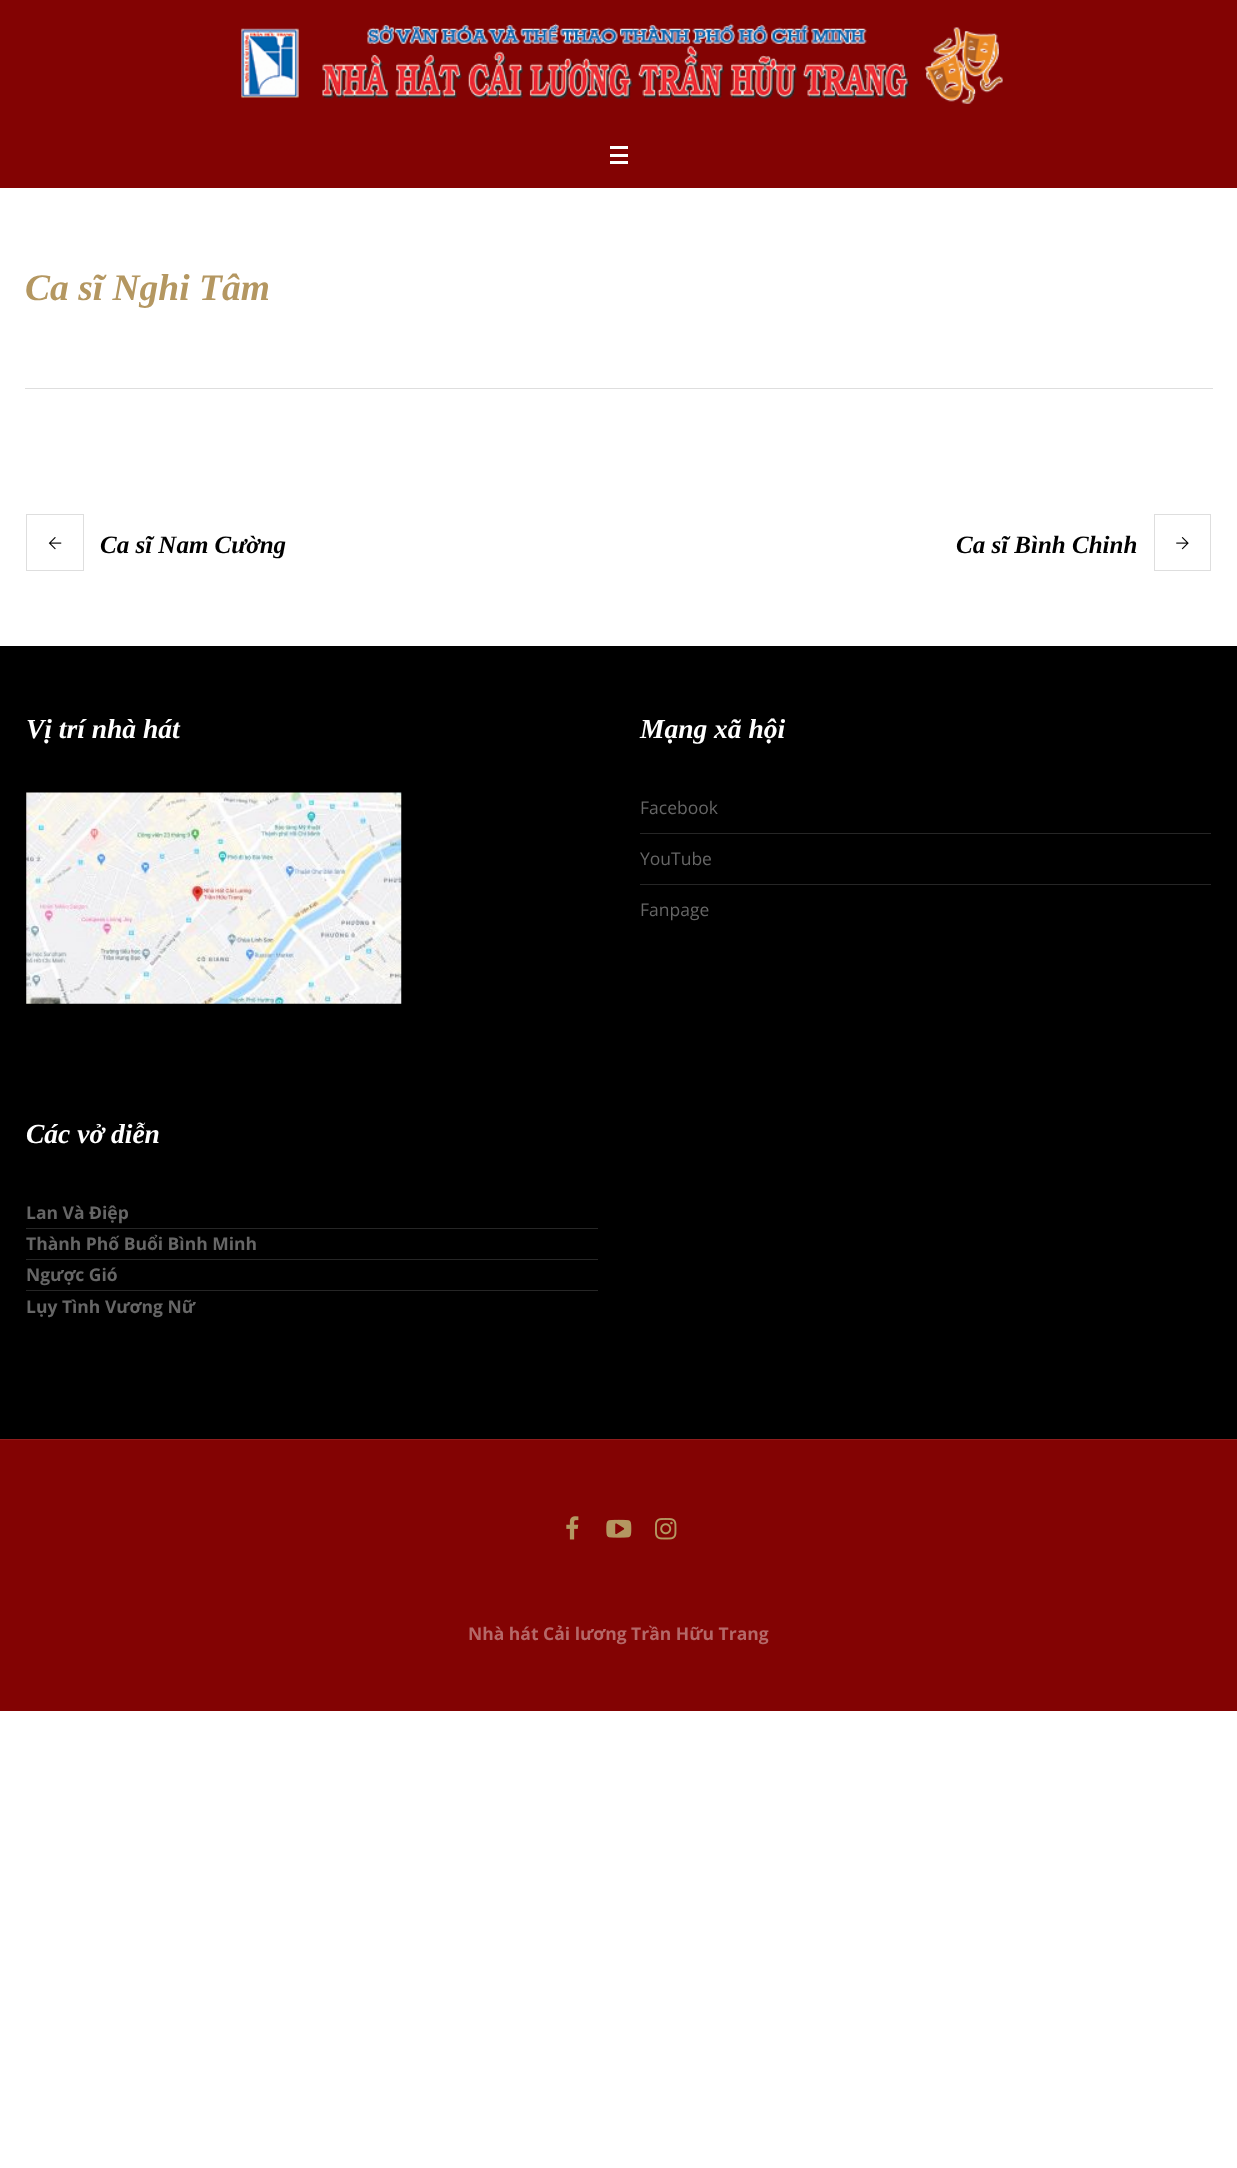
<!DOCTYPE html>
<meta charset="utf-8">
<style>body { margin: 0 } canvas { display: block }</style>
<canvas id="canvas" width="1237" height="2168"></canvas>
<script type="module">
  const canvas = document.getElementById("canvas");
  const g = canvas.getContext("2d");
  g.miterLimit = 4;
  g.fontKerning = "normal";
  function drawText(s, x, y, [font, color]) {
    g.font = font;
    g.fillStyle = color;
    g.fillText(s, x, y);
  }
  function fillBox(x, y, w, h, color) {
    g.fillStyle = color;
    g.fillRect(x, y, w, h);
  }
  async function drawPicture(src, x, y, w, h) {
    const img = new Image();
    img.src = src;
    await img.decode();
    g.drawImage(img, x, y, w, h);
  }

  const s1 = ["italic bold 37.5px Liberation Serif", "#B49761"];
  const s2 = ["italic bold 25px Liberation Serif", "#000000"];
  const s3 = ["italic bold 27.5px Liberation Serif", "#FFFFFF"];
  const s4 = ["17.5px Open Sans", "#666666"];
  const s5 = ["bold 17.5px Open Sans", "#666666"];
  const s6 = ["bold 17.5px Open Sans", "#B56868"];

  fillBox(0, 0, 1237, 2168, "#FFFFFF");
  fillBox(0, 0, 1237, 188, "#830303");
  await drawPicture("pic1.png", 241, 23, 762, 81);
  fillBox(610, 146, 18, 3, "#FFFFFF");
  fillBox(610, 154, 18, 3, "#FFFFFF");
  fillBox(610, 161, 18, 3, "#FFFFFF");
  drawText("Ca sĩ Nghi Tâm", 25, 300, s1);
  fillBox(25, 388, 1188, 1, "#DEDEDE");
  g.strokeStyle = "#DEDEDE";
  g.strokeRect(26.5, 514.5, 57, 56);
  await drawPicture("pic2.png", 48, 537, 14, 13);
  drawText("Ca sĩ Nam Cường", 100, 553, s2);
  drawText("Ca sĩ Bình Chinh", 956, 553, s2);
  g.strokeRect(1154.5, 514.5, 56, 56);
  await drawPicture("pic3.png", 1176, 537, 13, 13);
  fillBox(0, 646, 1237, 793, "#000000");
  drawText("Vị trí nhà hát", 26, 738, s3);
  await drawPicture("pic4.png", 26, 792, 376, 212);
  drawText("Mạng xã hội", 640, 738, s3);
  fillBox(640, 833, 571, 1, "#262626");
  drawText("Facebook", 640, 814, s4);
  fillBox(640, 884, 571, 1, "#262626");
  drawText("YouTube", 640, 865, s4);
  drawText("Fanpage", 640, 916, s4);
  drawText("Các vở diễn", 26, 1143, s3);
  fillBox(26, 1228, 572, 1, "#262626");
  drawText("Lan Và Điệp", 26, 1219, s5);
  fillBox(26, 1259, 572, 1, "#262626");
  drawText("Thành Phố Buổi Bình Minh", 26, 1250, s5);
  fillBox(26, 1290, 572, 1, "#262626");
  drawText("Ngược Gió", 26, 1281, s5);
  drawText("Lụy Tình Vương Nữ", 26, 1313, s5);
  fillBox(0, 1440, 1237, 271, "#830303");
  fillBox(0, 1439, 1237, 1, "#8F1C1C");
  await drawPicture("pic5.png", 566, 1516, 13, 24);
  await drawPicture("pic6.png", 606, 1519, 26, 19);
  await drawPicture("pic7.png", 655, 1518, 22, 22);
  drawText("Nhà hát Cải lương Trần Hữu Trang", 468, 1640, s6);
</script>
